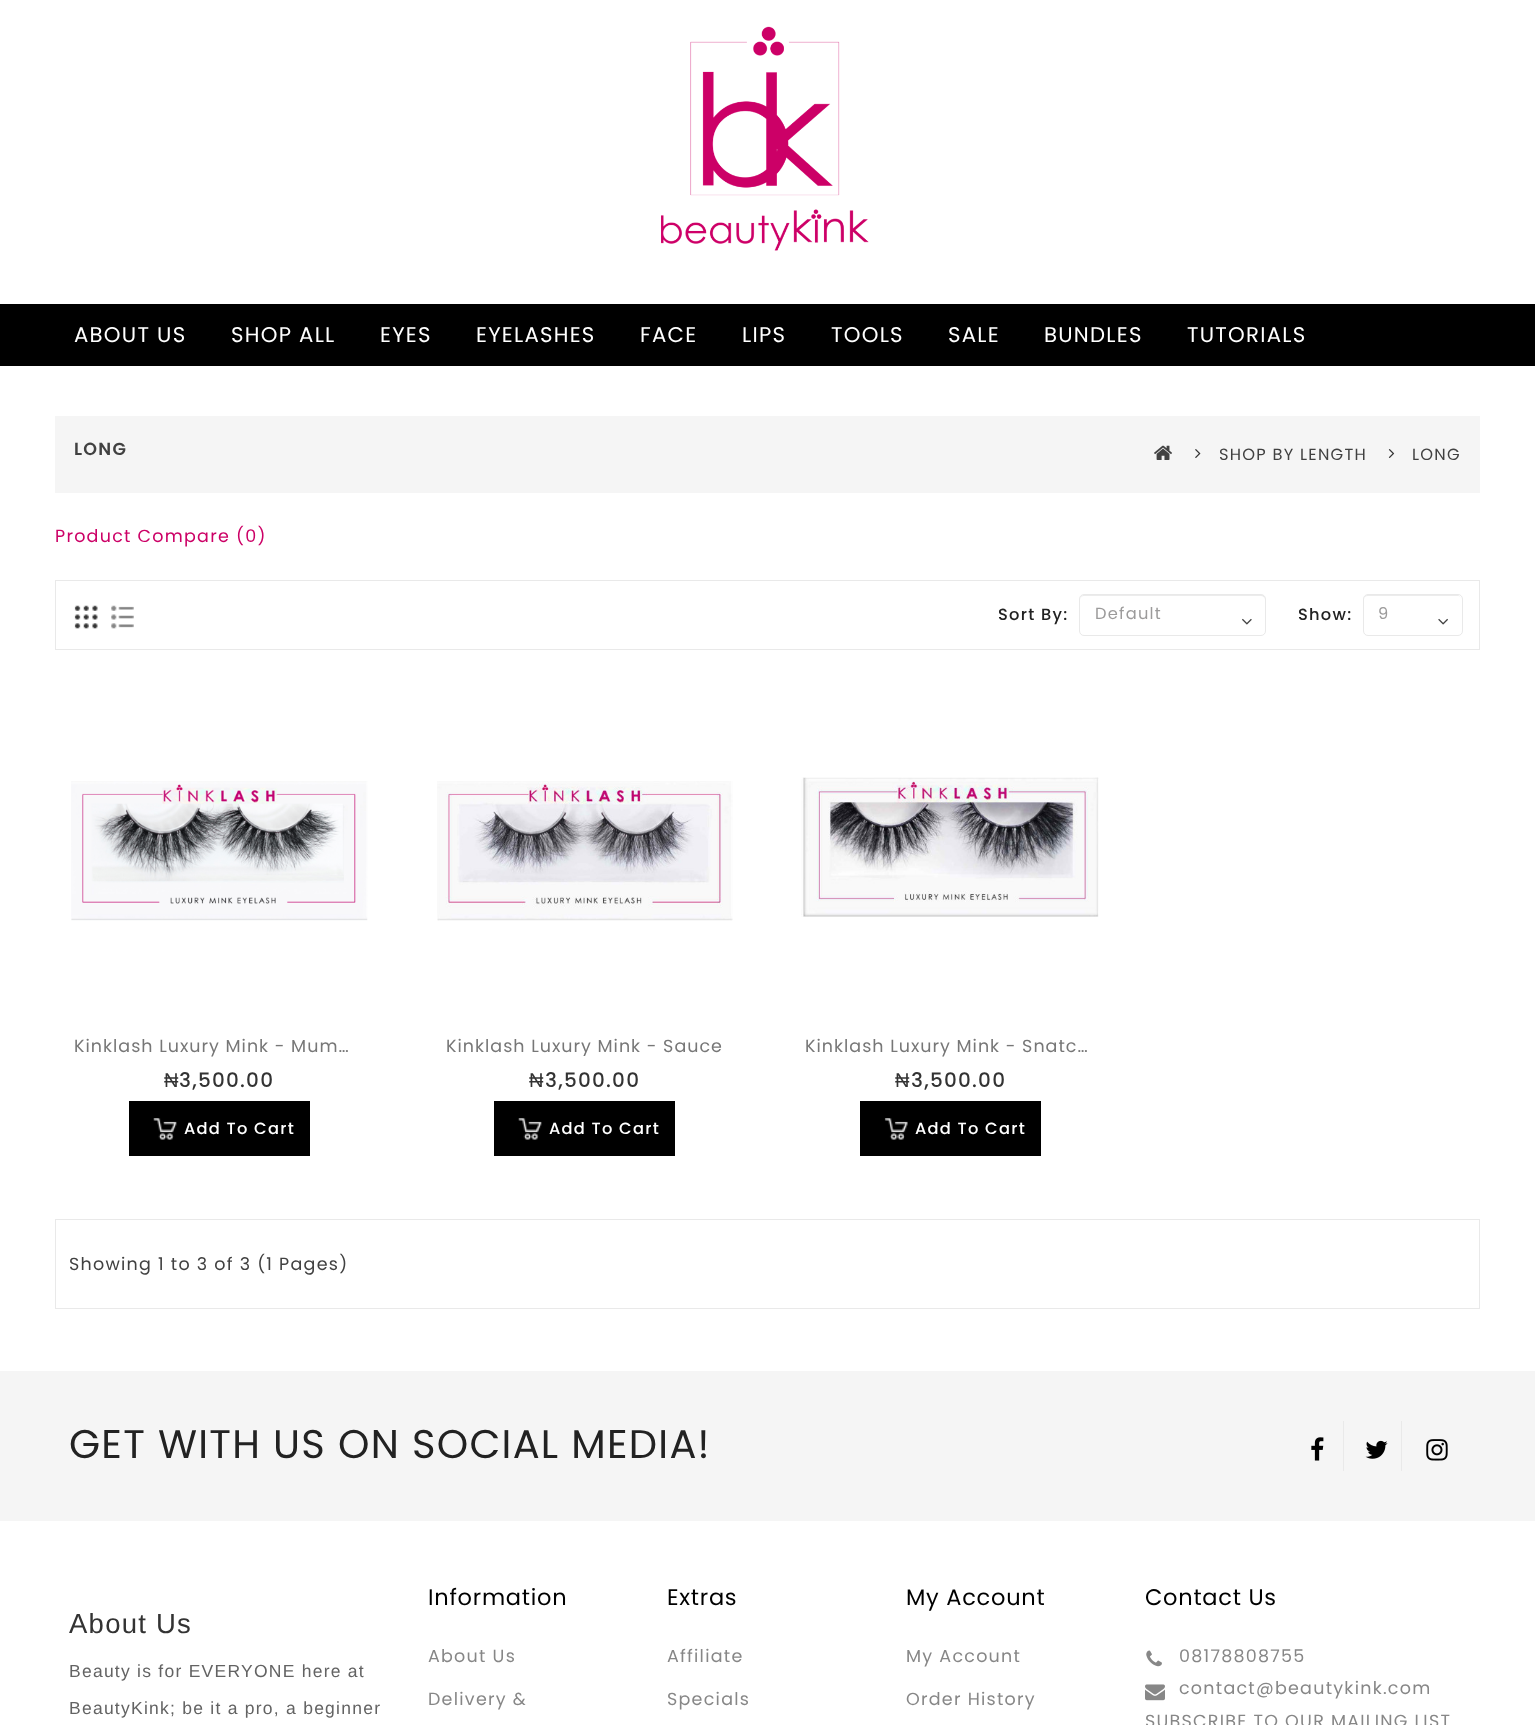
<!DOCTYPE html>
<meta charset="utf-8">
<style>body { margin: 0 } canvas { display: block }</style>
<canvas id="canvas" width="1535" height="1725"></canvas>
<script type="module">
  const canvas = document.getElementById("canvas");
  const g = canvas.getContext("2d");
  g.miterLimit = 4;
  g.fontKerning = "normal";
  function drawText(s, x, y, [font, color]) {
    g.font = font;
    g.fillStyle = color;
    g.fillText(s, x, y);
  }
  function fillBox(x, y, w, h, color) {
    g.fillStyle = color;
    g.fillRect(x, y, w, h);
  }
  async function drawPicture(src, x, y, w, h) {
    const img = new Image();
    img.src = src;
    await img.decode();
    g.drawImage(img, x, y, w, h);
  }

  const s1 = ["21.25px Poppins", "#FFFFFF"];
  const s2 = ["600 17.5px Poppins", "#414141"];
  const s3 = ["16.25px Poppins", "#414141"];
  const s4 = ["17.5px Poppins", "#CC0066"];
  const s5 = ["500 16.25px Poppins", "#222222"];
  const s6 = ["16.25px Poppins", "#9C9B9B"];
  const s7 = ["17.5px Poppins", "#777777"];
  const s8 = ["20px Liberation Sans", "#333333"];
  const s9 = ["500 20px Poppins", "#333333"];
  const s10 = ["500 16.25px Poppins", "#FFFFFF"];
  const s11 = ["17.5px Poppins", "#414141"];
  const s12 = ["40px Poppins", "#222222"];
  const s13 = ["27.5px Liberation Sans", "#333333"];
  const s14 = ["17.5px Liberation Sans", "#636363"];
  const s15 = ["22.5px Poppins", "#000000"];
  const s16 = ["17.5px Poppins", "#878787"];

  fillBox(0, 0, 1535, 1725, "#FFFFFF");
  await drawPicture("pic1.png", 661, 26, 208, 225);
  fillBox(0, 304, 1535, 62, "#000000");
  g.letterSpacing = "1.25px";
  drawText("ABOUT US", 74, 342, s1);
  drawText("SHOP ALL", 231, 342, s1);
  drawText("EYES", 380, 342, s1);
  drawText("EYELASHES", 476, 342, s1);
  drawText("FACE", 640, 342, s1);
  drawText("LIPS", 742, 342, s1);
  drawText("TOOLS", 831, 342, s1);
  drawText("SALE", 948, 342, s1);
  drawText("BUNDLES", 1044, 342, s1);
  drawText("TUTORIALS", 1187, 342, s1);
  fillBox(55, 416, 1425, 77, "#F5F5F5");
  drawText("LONG", 74, 455, s2);
  await drawPicture("pic2.png", 1154, 445, 18, 15);
  await drawPicture("pic3.png", 1195, 449, 6, 9);
  drawText("SHOP BY LENGTH", 1219, 460, s3);
  await drawPicture("pic4.png", 1388, 449, 7, 9);
  drawText("LONG", 1412, 460, s3);
  drawText("Product Compare (0)", 55, 542, s4);
  g.strokeStyle = "#E9E9E9";
  g.strokeRect(55.5, 580.5, 1424, 69);
  await drawPicture("pic5.png", 74, 605, 24, 24);
  await drawPicture("pic6.png", 111, 605, 23, 24);
  drawText("Sort By:", 998, 620, s5);
  g.fillStyle = "#ECECEC";
  g.beginPath();
  g.moveTo(1084, 596);
  g.lineTo(1261, 596);
  g.bezierCurveTo(1263, 596, 1265, 598, 1265, 600);
  g.bezierCurveTo(1265, 597, 1264, 595, 1261, 595);
  g.lineTo(1083, 595);
  g.bezierCurveTo(1081, 596, 1080, 598, 1080, 600);
  g.bezierCurveTo(1080, 598, 1082, 596, 1084, 596);
  g.closePath();
  g.fill();
  g.beginPath();
  g.roundRect(1079.5, 594.5, 186, 41, 4.5);
  g.stroke();
  drawText("Default", 1095, 619, s6);
  await drawPicture("pic7.png", 1242, 618, 10, 7);
  drawText("Show:", 1298, 620, s5);
  g.fillStyle = "#ECECEC";
  g.beginPath();
  g.moveTo(1368, 596);
  g.lineTo(1458, 596);
  g.bezierCurveTo(1460, 596, 1461, 598, 1461, 600);
  g.bezierCurveTo(1461, 591, 1447, 595, 1442, 595);
  g.lineTo(1383, 595);
  g.bezierCurveTo(1378, 595, 1364, 591, 1364, 600);
  g.bezierCurveTo(1364, 598, 1365, 596, 1368, 596);
  g.closePath();
  g.fill();
  g.beginPath();
  g.roundRect(1363.5, 594.5, 99, 41, 4.5);
  g.stroke();
  drawText("9", 1378, 619, s6);
  await drawPicture("pic8.png", 1438, 618, 10, 7);
  await drawPicture("pic9.png", 71, 781, 297, 140);
  g.letterSpacing = "1px";
  drawText("Kinklash Luxury Mink - Mum…", 74, 1052, s7);
  g.letterSpacing = "1.25px";
  drawText("₦", 164, 1087, s8);
  drawText("3,500.00", 179, 1087, s9);
  fillBox(129, 1101, 181, 55, "#000000");
  await drawPicture("pic10.png", 153, 1118, 24, 22);
  drawText("Add To Cart", 184, 1134, s10);
  await drawPicture("pic11.png", 437, 781, 296, 140);
  g.save();
  g.beginPath();
  g.rect(440, 1034, 290, 22);
  g.clip();
  g.letterSpacing = "1px";
  drawText("Kinklash Luxury Mink - Sauce", 446, 1052, s7);
  g.restore();
  drawText("₦", 529, 1087, s8);
  drawText("3,500.00", 545, 1087, s9);
  fillBox(494, 1101, 181, 55, "#000000");
  await drawPicture("pic12.png", 518, 1118, 24, 22);
  drawText("Add To Cart", 549, 1134, s10);
  await drawPicture("pic13.png", 801, 777, 298, 140);
  g.letterSpacing = "1px";
  drawText("Kinklash Luxury Mink - Snatc…", 805, 1052, s7);
  g.letterSpacing = "1.25px";
  drawText("₦", 895, 1087, s8);
  drawText("3,500.00", 911, 1087, s9);
  fillBox(860, 1101, 181, 55, "#000000");
  await drawPicture("pic14.png", 884, 1118, 24, 22);
  drawText("Add To Cart", 915, 1134, s10);
  g.strokeRect(55.5, 1219.5, 1424, 89);
  drawText("Showing 1 to 3 of 3 (1 Pages)", 69, 1270, s11);
  fillBox(0, 1371, 1535, 150, "#F5F5F5");
  drawText("GET WITH US ON SOCIAL MEDIA!", 69, 1458, s12);
  fillBox(1343, 1421, 1, 50, "#E9E9E9");
  await drawPicture("pic15.png", 1311, 1437, 13, 24);
  fillBox(1401, 1421, 1, 50, "#E9E9E9");
  await drawPicture("pic16.png", 1365, 1440, 23, 19);
  await drawPicture("pic17.png", 1426, 1439, 22, 22);
  drawText("About Us", 69, 1633, s13);
  drawText("Beauty is for EVERYONE here at", 69, 1677, s14);
  drawText("BeautyKink; be it a pro, a beginner", 69, 1714, s14);
  g.letterSpacing = "0.75px";
  drawText("Information", 428, 1605, s15);
  g.letterSpacing = "1.25px";
  drawText("About Us", 428, 1662, s16);
  drawText("Delivery &", 428, 1705, s16);
  g.letterSpacing = "0.75px";
  drawText("Extras", 667, 1605, s15);
  g.letterSpacing = "1.25px";
  drawText("Affiliate", 667, 1662, s16);
  drawText("Specials", 667, 1705, s16);
  g.letterSpacing = "0.75px";
  drawText("My Account", 906, 1605, s15);
  g.letterSpacing = "1.25px";
  drawText("My Account", 906, 1662, s16);
  drawText("Order History", 906, 1705, s16);
  g.letterSpacing = "0.75px";
  drawText("Contact Us", 1145, 1605, s15);
  await drawPicture("pic18.png", 1146, 1650, 16, 17);
  g.letterSpacing = "1.25px";
  drawText("08178808755", 1179, 1662, s16);
  await drawPicture("pic19.png", 1145, 1684, 20, 17);
  drawText("contact@beautykink.com", 1179, 1694, s16);
  drawText("SUBSCRIBE TO OUR MAILING LIST", 1145, 1727, s16);
</script>
